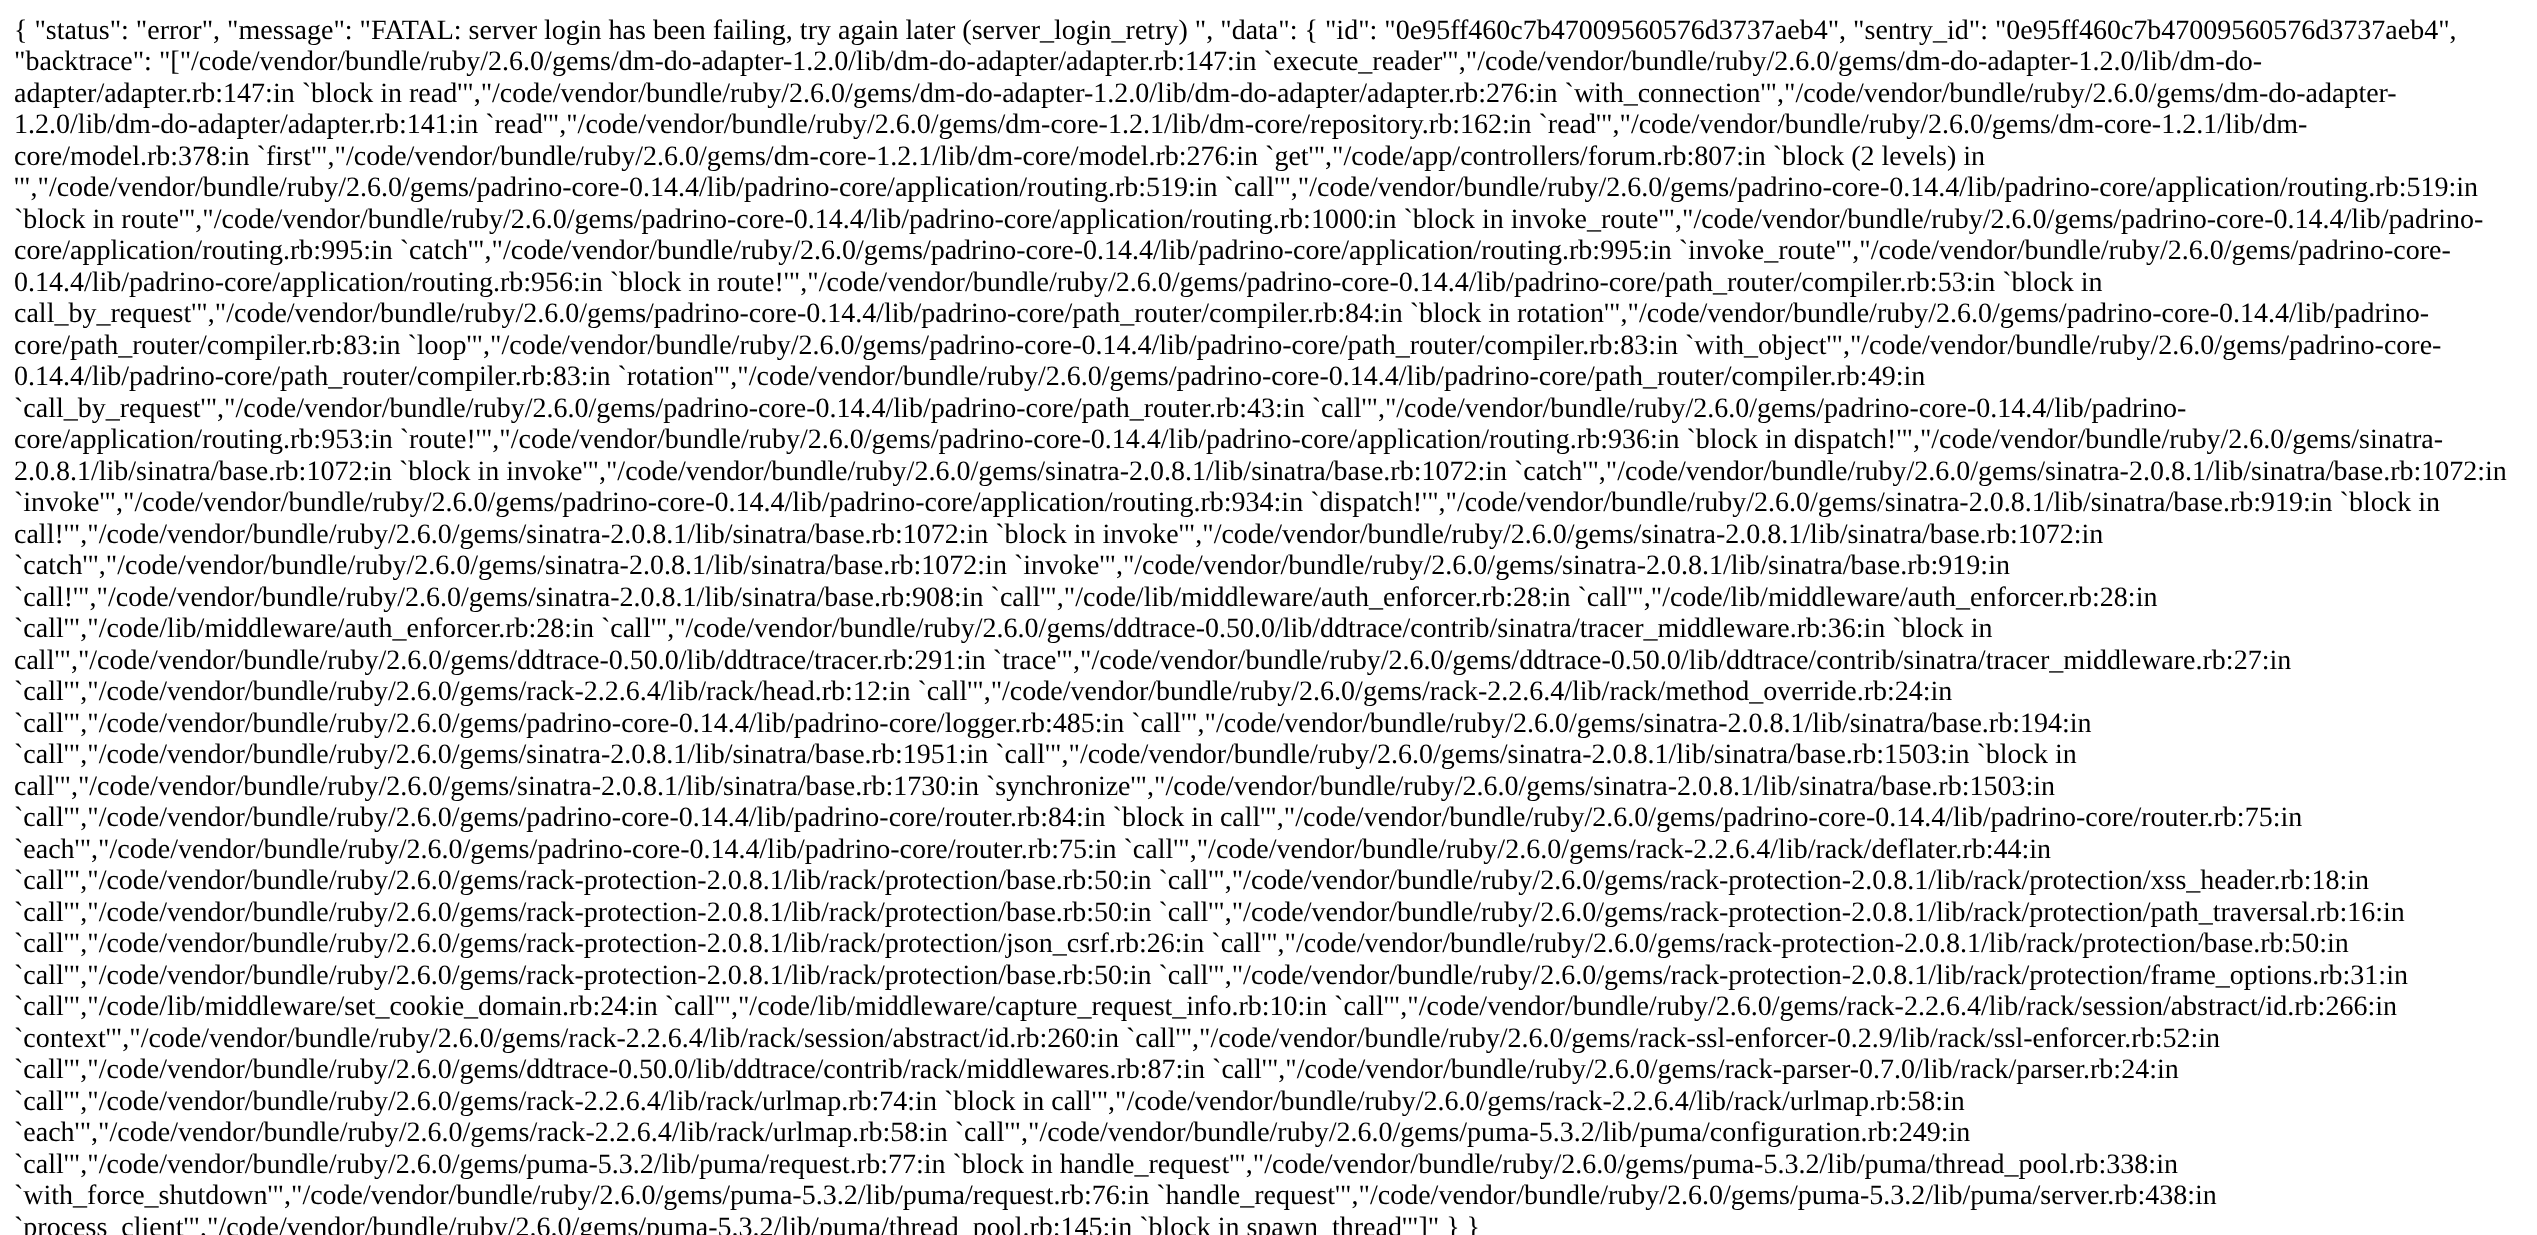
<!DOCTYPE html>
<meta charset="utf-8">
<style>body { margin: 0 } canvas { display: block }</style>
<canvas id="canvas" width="2537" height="1235"></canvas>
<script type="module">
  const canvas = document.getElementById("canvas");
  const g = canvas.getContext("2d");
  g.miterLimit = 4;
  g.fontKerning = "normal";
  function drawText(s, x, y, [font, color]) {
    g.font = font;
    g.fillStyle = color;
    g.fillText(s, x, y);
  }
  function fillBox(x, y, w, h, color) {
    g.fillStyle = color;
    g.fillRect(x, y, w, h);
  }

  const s1 = ["28px Liberation Serif", "#000000"];

  fillBox(0, 0, 2537, 1235, "#FFFFFF");
  drawText("{ \"status\": \"error\", \"message\": \"FATAL: server login has been failing, try again later (server_login_retry) \", \"data\": { \"id\": \"0e95ff460c7b47009560576d3737aeb4\", \"sentry_id\": \"0e95ff460c7b47009560576d3737aeb4\",", 14, 39, s1);
  drawText("\"backtrace\": \"[\"/code/vendor/bundle/ruby/2.6.0/gems/dm-do-adapter-1.2.0/lib/dm-do-adapter/adapter.rb:147:in `execute_reader'\",\"/code/vendor/bundle/ruby/2.6.0/gems/dm-do-adapter-1.2.0/lib/dm-do-", 14, 70, s1);
  drawText("adapter/adapter.rb:147:in `block in read'\",\"/code/vendor/bundle/ruby/2.6.0/gems/dm-do-adapter-1.2.0/lib/dm-do-adapter/adapter.rb:276:in `with_connection'\",\"/code/vendor/bundle/ruby/2.6.0/gems/dm-do-adapter-", 14, 102, s1);
  drawText("1.2.0/lib/dm-do-adapter/adapter.rb:141:in `read'\",\"/code/vendor/bundle/ruby/2.6.0/gems/dm-core-1.2.1/lib/dm-core/repository.rb:162:in `read'\",\"/code/vendor/bundle/ruby/2.6.0/gems/dm-core-1.2.1/lib/dm-", 14, 133, s1);
  drawText("core/model.rb:378:in `first'\",\"/code/vendor/bundle/ruby/2.6.0/gems/dm-core-1.2.1/lib/dm-core/model.rb:276:in `get'\",\"/code/app/controllers/forum.rb:807:in `block (2 levels) in", 14, 165, s1);
  drawText("'\",\"/code/vendor/bundle/ruby/2.6.0/gems/padrino-core-0.14.4/lib/padrino-core/application/routing.rb:519:in `call'\",\"/code/vendor/bundle/ruby/2.6.0/gems/padrino-core-0.14.4/lib/padrino-core/application/routing.rb:519:in", 14, 196, s1);
  drawText("`block in route'\",\"/code/vendor/bundle/ruby/2.6.0/gems/padrino-core-0.14.4/lib/padrino-core/application/routing.rb:1000:in `block in invoke_route'\",\"/code/vendor/bundle/ruby/2.6.0/gems/padrino-core-0.14.4/lib/padrino-", 14, 228, s1);
  drawText("core/application/routing.rb:995:in `catch'\",\"/code/vendor/bundle/ruby/2.6.0/gems/padrino-core-0.14.4/lib/padrino-core/application/routing.rb:995:in `invoke_route'\",\"/code/vendor/bundle/ruby/2.6.0/gems/padrino-core-", 14, 259, s1);
  drawText("0.14.4/lib/padrino-core/application/routing.rb:956:in `block in route!'\",\"/code/vendor/bundle/ruby/2.6.0/gems/padrino-core-0.14.4/lib/padrino-core/path_router/compiler.rb:53:in `block in", 14, 291, s1);
  drawText("call_by_request'\",\"/code/vendor/bundle/ruby/2.6.0/gems/padrino-core-0.14.4/lib/padrino-core/path_router/compiler.rb:84:in `block in rotation'\",\"/code/vendor/bundle/ruby/2.6.0/gems/padrino-core-0.14.4/lib/padrino-", 14, 322, s1);
  drawText("core/path_router/compiler.rb:83:in `loop'\",\"/code/vendor/bundle/ruby/2.6.0/gems/padrino-core-0.14.4/lib/padrino-core/path_router/compiler.rb:83:in `with_object'\",\"/code/vendor/bundle/ruby/2.6.0/gems/padrino-core-", 14, 354, s1);
  drawText("0.14.4/lib/padrino-core/path_router/compiler.rb:83:in `rotation'\",\"/code/vendor/bundle/ruby/2.6.0/gems/padrino-core-0.14.4/lib/padrino-core/path_router/compiler.rb:49:in", 14, 385, s1);
  drawText("`call_by_request'\",\"/code/vendor/bundle/ruby/2.6.0/gems/padrino-core-0.14.4/lib/padrino-core/path_router.rb:43:in `call'\",\"/code/vendor/bundle/ruby/2.6.0/gems/padrino-core-0.14.4/lib/padrino-", 14, 417, s1);
  drawText("core/application/routing.rb:953:in `route!'\",\"/code/vendor/bundle/ruby/2.6.0/gems/padrino-core-0.14.4/lib/padrino-core/application/routing.rb:936:in `block in dispatch!'\",\"/code/vendor/bundle/ruby/2.6.0/gems/sinatra-", 14, 448, s1);
  drawText("2.0.8.1/lib/sinatra/base.rb:1072:in `block in invoke'\",\"/code/vendor/bundle/ruby/2.6.0/gems/sinatra-2.0.8.1/lib/sinatra/base.rb:1072:in `catch'\",\"/code/vendor/bundle/ruby/2.6.0/gems/sinatra-2.0.8.1/lib/sinatra/base.rb:1072:in", 14, 480, s1);
  drawText("`invoke'\",\"/code/vendor/bundle/ruby/2.6.0/gems/padrino-core-0.14.4/lib/padrino-core/application/routing.rb:934:in `dispatch!'\",\"/code/vendor/bundle/ruby/2.6.0/gems/sinatra-2.0.8.1/lib/sinatra/base.rb:919:in `block in", 14, 511, s1);
  drawText("call!'\",\"/code/vendor/bundle/ruby/2.6.0/gems/sinatra-2.0.8.1/lib/sinatra/base.rb:1072:in `block in invoke'\",\"/code/vendor/bundle/ruby/2.6.0/gems/sinatra-2.0.8.1/lib/sinatra/base.rb:1072:in", 14, 543, s1);
  drawText("`catch'\",\"/code/vendor/bundle/ruby/2.6.0/gems/sinatra-2.0.8.1/lib/sinatra/base.rb:1072:in `invoke'\",\"/code/vendor/bundle/ruby/2.6.0/gems/sinatra-2.0.8.1/lib/sinatra/base.rb:919:in", 14, 574, s1);
  drawText("`call!'\",\"/code/vendor/bundle/ruby/2.6.0/gems/sinatra-2.0.8.1/lib/sinatra/base.rb:908:in `call'\",\"/code/lib/middleware/auth_enforcer.rb:28:in `call'\",\"/code/lib/middleware/auth_enforcer.rb:28:in", 14, 606, s1);
  drawText("`call'\",\"/code/lib/middleware/auth_enforcer.rb:28:in `call'\",\"/code/vendor/bundle/ruby/2.6.0/gems/ddtrace-0.50.0/lib/ddtrace/contrib/sinatra/tracer_middleware.rb:36:in `block in", 14, 637, s1);
  drawText("call'\",\"/code/vendor/bundle/ruby/2.6.0/gems/ddtrace-0.50.0/lib/ddtrace/tracer.rb:291:in `trace'\",\"/code/vendor/bundle/ruby/2.6.0/gems/ddtrace-0.50.0/lib/ddtrace/contrib/sinatra/tracer_middleware.rb:27:in", 14, 669, s1);
  drawText("`call'\",\"/code/vendor/bundle/ruby/2.6.0/gems/rack-2.2.6.4/lib/rack/head.rb:12:in `call'\",\"/code/vendor/bundle/ruby/2.6.0/gems/rack-2.2.6.4/lib/rack/method_override.rb:24:in", 14, 700, s1);
  drawText("`call'\",\"/code/vendor/bundle/ruby/2.6.0/gems/padrino-core-0.14.4/lib/padrino-core/logger.rb:485:in `call'\",\"/code/vendor/bundle/ruby/2.6.0/gems/sinatra-2.0.8.1/lib/sinatra/base.rb:194:in", 14, 732, s1);
  drawText("`call'\",\"/code/vendor/bundle/ruby/2.6.0/gems/sinatra-2.0.8.1/lib/sinatra/base.rb:1951:in `call'\",\"/code/vendor/bundle/ruby/2.6.0/gems/sinatra-2.0.8.1/lib/sinatra/base.rb:1503:in `block in", 14, 763, s1);
  drawText("call'\",\"/code/vendor/bundle/ruby/2.6.0/gems/sinatra-2.0.8.1/lib/sinatra/base.rb:1730:in `synchronize'\",\"/code/vendor/bundle/ruby/2.6.0/gems/sinatra-2.0.8.1/lib/sinatra/base.rb:1503:in", 14, 795, s1);
  drawText("`call'\",\"/code/vendor/bundle/ruby/2.6.0/gems/padrino-core-0.14.4/lib/padrino-core/router.rb:84:in `block in call'\",\"/code/vendor/bundle/ruby/2.6.0/gems/padrino-core-0.14.4/lib/padrino-core/router.rb:75:in", 14, 826, s1);
  drawText("`each'\",\"/code/vendor/bundle/ruby/2.6.0/gems/padrino-core-0.14.4/lib/padrino-core/router.rb:75:in `call'\",\"/code/vendor/bundle/ruby/2.6.0/gems/rack-2.2.6.4/lib/rack/deflater.rb:44:in", 14, 858, s1);
  drawText("`call'\",\"/code/vendor/bundle/ruby/2.6.0/gems/rack-protection-2.0.8.1/lib/rack/protection/base.rb:50:in `call'\",\"/code/vendor/bundle/ruby/2.6.0/gems/rack-protection-2.0.8.1/lib/rack/protection/xss_header.rb:18:in", 14, 889, s1);
  drawText("`call'\",\"/code/vendor/bundle/ruby/2.6.0/gems/rack-protection-2.0.8.1/lib/rack/protection/base.rb:50:in `call'\",\"/code/vendor/bundle/ruby/2.6.0/gems/rack-protection-2.0.8.1/lib/rack/protection/path_traversal.rb:16:in", 14, 921, s1);
  drawText("`call'\",\"/code/vendor/bundle/ruby/2.6.0/gems/rack-protection-2.0.8.1/lib/rack/protection/json_csrf.rb:26:in `call'\",\"/code/vendor/bundle/ruby/2.6.0/gems/rack-protection-2.0.8.1/lib/rack/protection/base.rb:50:in", 14, 952, s1);
  drawText("`call'\",\"/code/vendor/bundle/ruby/2.6.0/gems/rack-protection-2.0.8.1/lib/rack/protection/base.rb:50:in `call'\",\"/code/vendor/bundle/ruby/2.6.0/gems/rack-protection-2.0.8.1/lib/rack/protection/frame_options.rb:31:in", 14, 984, s1);
  drawText("`call'\",\"/code/lib/middleware/set_cookie_domain.rb:24:in `call'\",\"/code/lib/middleware/capture_request_info.rb:10:in `call'\",\"/code/vendor/bundle/ruby/2.6.0/gems/rack-2.2.6.4/lib/rack/session/abstract/id.rb:266:in", 14, 1015, s1);
  drawText("`context'\",\"/code/vendor/bundle/ruby/2.6.0/gems/rack-2.2.6.4/lib/rack/session/abstract/id.rb:260:in `call'\",\"/code/vendor/bundle/ruby/2.6.0/gems/rack-ssl-enforcer-0.2.9/lib/rack/ssl-enforcer.rb:52:in", 14, 1047, s1);
  drawText("`call'\",\"/code/vendor/bundle/ruby/2.6.0/gems/ddtrace-0.50.0/lib/ddtrace/contrib/rack/middlewares.rb:87:in `call'\",\"/code/vendor/bundle/ruby/2.6.0/gems/rack-parser-0.7.0/lib/rack/parser.rb:24:in", 14, 1078, s1);
  drawText("`call'\",\"/code/vendor/bundle/ruby/2.6.0/gems/rack-2.2.6.4/lib/rack/urlmap.rb:74:in `block in call'\",\"/code/vendor/bundle/ruby/2.6.0/gems/rack-2.2.6.4/lib/rack/urlmap.rb:58:in", 14, 1110, s1);
  drawText("`each'\",\"/code/vendor/bundle/ruby/2.6.0/gems/rack-2.2.6.4/lib/rack/urlmap.rb:58:in `call'\",\"/code/vendor/bundle/ruby/2.6.0/gems/puma-5.3.2/lib/puma/configuration.rb:249:in", 14, 1141, s1);
  drawText("`call'\",\"/code/vendor/bundle/ruby/2.6.0/gems/puma-5.3.2/lib/puma/request.rb:77:in `block in handle_request'\",\"/code/vendor/bundle/ruby/2.6.0/gems/puma-5.3.2/lib/puma/thread_pool.rb:338:in", 14, 1173, s1);
  drawText("`with_force_shutdown'\",\"/code/vendor/bundle/ruby/2.6.0/gems/puma-5.3.2/lib/puma/request.rb:76:in `handle_request'\",\"/code/vendor/bundle/ruby/2.6.0/gems/puma-5.3.2/lib/puma/server.rb:438:in", 14, 1204, s1);
  drawText("`process_client'\",\"/code/vendor/bundle/ruby/2.6.0/gems/puma-5.3.2/lib/puma/thread_pool.rb:145:in `block in spawn_thread'\"]\" } }", 14, 1236, s1);
</script>
